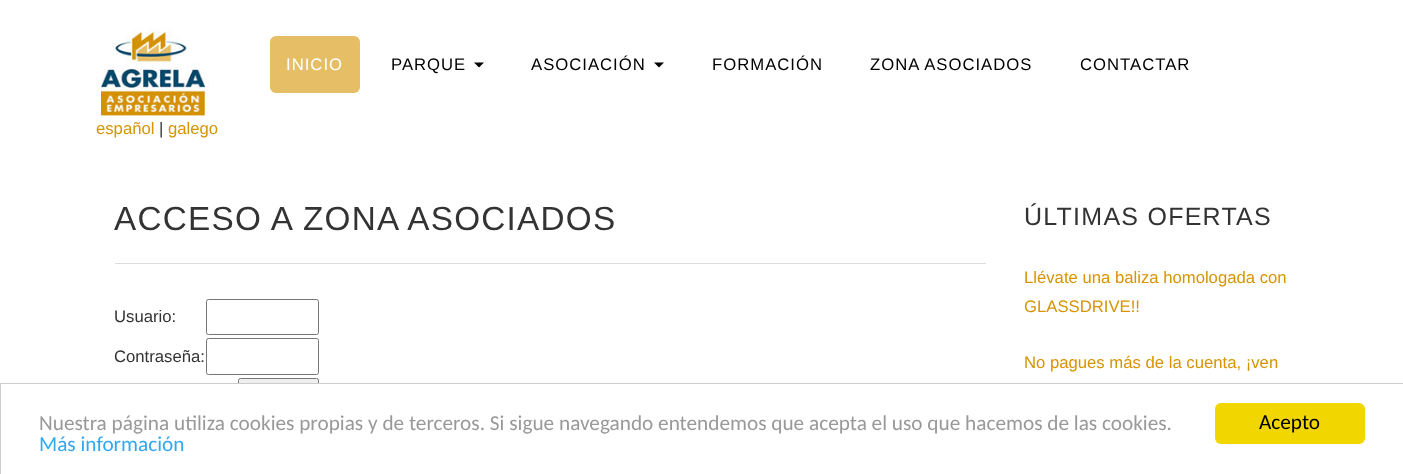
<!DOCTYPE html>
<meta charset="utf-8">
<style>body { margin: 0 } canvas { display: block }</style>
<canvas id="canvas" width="1403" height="474"></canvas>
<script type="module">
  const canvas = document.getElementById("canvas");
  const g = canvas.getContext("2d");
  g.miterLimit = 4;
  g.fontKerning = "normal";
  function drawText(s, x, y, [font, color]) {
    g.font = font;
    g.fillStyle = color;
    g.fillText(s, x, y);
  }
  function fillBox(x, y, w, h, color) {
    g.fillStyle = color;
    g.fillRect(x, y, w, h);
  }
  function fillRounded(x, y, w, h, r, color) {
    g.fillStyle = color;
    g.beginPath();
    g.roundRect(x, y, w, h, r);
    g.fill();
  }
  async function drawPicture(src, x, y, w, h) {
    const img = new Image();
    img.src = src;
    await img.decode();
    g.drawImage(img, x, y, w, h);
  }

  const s1 = ["16.7px Liberation Sans", "#FFFFFF"];
  const s2 = ["16.7px Liberation Sans", "#000000"];
  const s3 = ["16.7px Liberation Sans", "#D69400"];
  const s4 = ["16.7px Liberation Sans", "#333333"];
  const s5 = ["33.3px Liberation Sans", "#333333"];
  const s6 = ["25px Liberation Sans", "#333333"];
  const s7 = ["21.25px Carlito", "#999999"];
  const s8 = ["21.25px Carlito", "#31A8F0"];
  const s9 = ["21.25px Carlito", "#000000"];

  fillBox(0, 0, 1403, 474, "#FFFFFF");
  await drawPicture("pic1.png", 96, 29, 113, 88);
  fillRounded(270, 36, 90, 57, 6, "#E6BE66");
  g.letterSpacing = "1px";
  drawText("INICIO", 286, 70, s1);
  drawText("PARQUE", 391, 70, s2);
  g.beginPath();
  g.moveTo(474, 62.5);
  g.lineTo(484, 62.5);
  g.lineTo(479, 67.5);
  g.closePath();
  g.fill();
  drawText("ASOCIACIÓN", 531, 70, s2);
  g.beginPath();
  g.moveTo(654, 62.5);
  g.lineTo(664, 62.5);
  g.lineTo(659, 67.5);
  g.closePath();
  g.fill();
  drawText("FORMACIÓN", 712, 70, s2);
  drawText("ZONA ASOCIADOS", 870, 70, s2);
  drawText("CONTACTAR", 1080, 70, s2);
  g.letterSpacing = "0px";
  drawText("español", 96, 134, s3);
  drawText("|", 159, 134, s4);
  drawText("galego", 168, 134, s3);
  g.letterSpacing = "1.25px";
  drawText("ACCESO A ZONA ASOCIADOS", 114, 230, s5);
  fillBox(115, 263, 871, 1, "#DDDDDD");
  g.letterSpacing = "0px";
  drawText("Usuario:", 114, 322, s4);
  g.beginPath();
  g.roundRect(206.5, 299.5, 112, 35, 2);
  g.strokeStyle = "#767676";
  g.stroke();
  drawText("Contraseña:", 114, 362, s4);
  g.beginPath();
  g.roundRect(206.5, 338.5, 112, 36, 2);
  g.stroke();
  g.fillStyle = "#EFEFEF";
  g.beginPath();
  g.roundRect(238.5, 378.5, 80, 35, 2);
  g.fill();
  g.stroke();
  g.letterSpacing = "1.25px";
  drawText("ÚLTIMAS OFERTAS", 1024, 225, s6);
  g.letterSpacing = "0px";
  drawText("Llévate una baliza homologada con", 1024, 283, s3);
  drawText("GLASSDRIVE!!", 1024, 312, s3);
  drawText("No pagues más de la cuenta, ¡ven", 1024, 368, s3);
  fillBox(238, 384, 81, 30, "#FFFFFF");
  g.strokeStyle = "#CCCCCC";
  g.strokeRect(0.5, 383.5, 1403, 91);
  drawText("Nuestra página utiliza cookies propias y de terceros. Si sigue navegando entendemos que acepta el uso que hacemos de las cookies.", 39, 430, s7);
  drawText("Más información", 39, 451, s8);
  fillRounded(1215, 403, 150, 41, 6, "#F1D600");
  drawText("Acepto", 1259, 429, s9);
</script>
